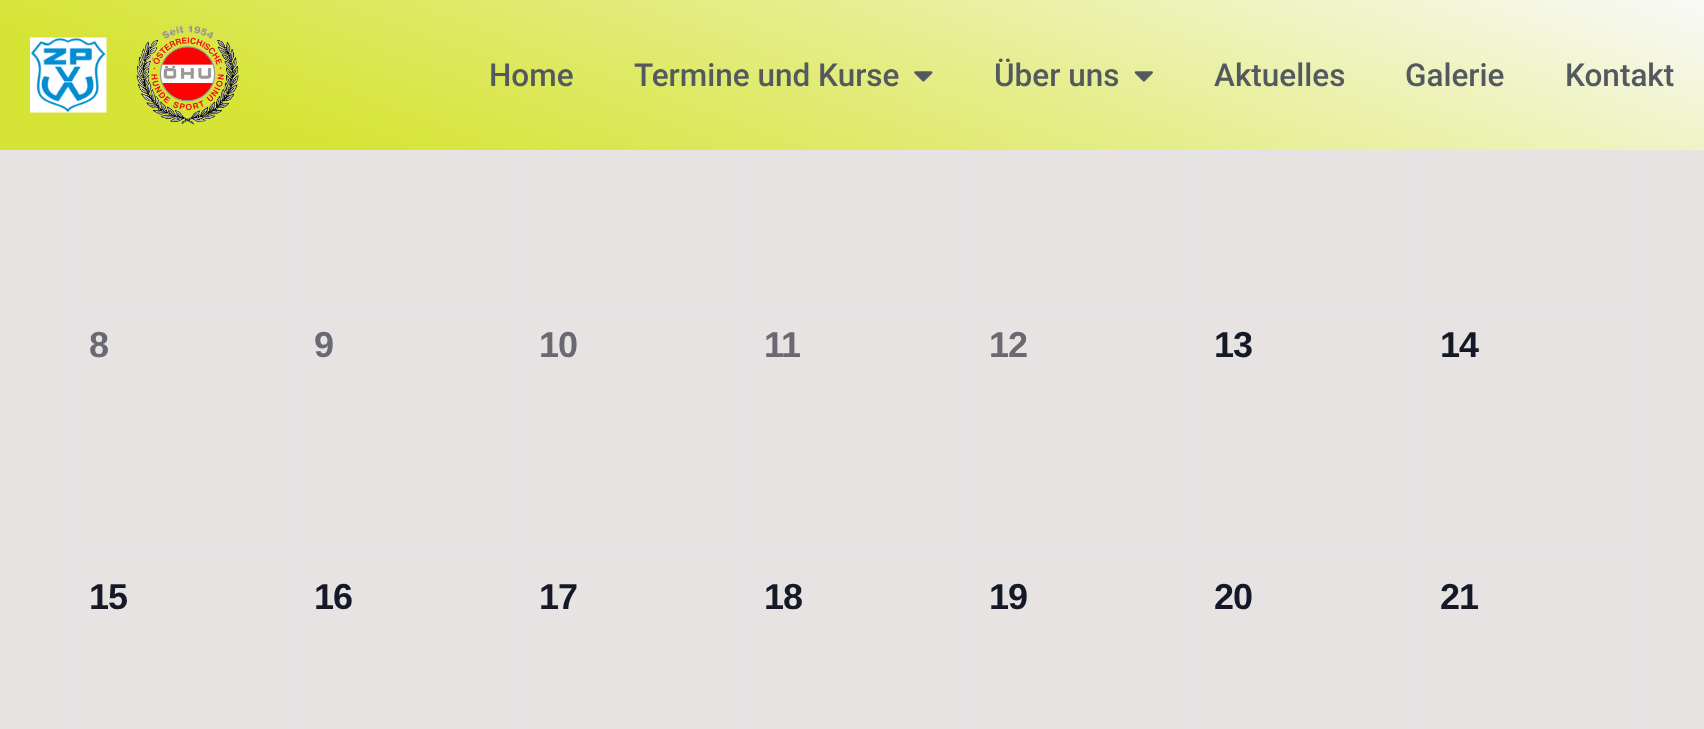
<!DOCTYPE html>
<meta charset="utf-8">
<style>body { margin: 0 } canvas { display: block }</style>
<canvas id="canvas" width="1704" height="729"></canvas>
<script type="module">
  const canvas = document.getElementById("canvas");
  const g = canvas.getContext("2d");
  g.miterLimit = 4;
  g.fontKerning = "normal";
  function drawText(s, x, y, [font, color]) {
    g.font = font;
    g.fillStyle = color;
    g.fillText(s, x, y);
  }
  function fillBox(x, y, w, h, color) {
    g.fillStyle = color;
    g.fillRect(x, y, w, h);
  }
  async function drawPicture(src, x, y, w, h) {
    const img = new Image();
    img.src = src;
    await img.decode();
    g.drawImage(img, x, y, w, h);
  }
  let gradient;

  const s1 = ["500 31.5px Roboto", "#54595F"];
  const s2 = ["bold 36px Liberation Sans", "#696972"];
  const s3 = ["bold 36px Liberation Sans", "#141827"];

  fillBox(0, 0, 1704, 729, "#E8E3E3");
  fillBox(106, 54, 1535, 2, "#E4E4E4");
  fillBox(63, 112, 2, 617, "#E4E4E4");
  fillBox(288, 56, 2, 673, "#E4E4E4");
  fillBox(513, 56, 2, 673, "#E4E4E4");
  fillBox(738, 56, 2, 673, "#E4E4E4");
  fillBox(965, 56, 2, 673, "#E4E4E4");
  fillBox(1190, 56, 2, 673, "#E4E4E4");
  fillBox(1415, 56, 2, 673, "#E4E4E4");
  fillBox(1640, 56, 2, 673, "#E4E4E4");
  gradient = g.createLinearGradient(728, 415, 976, -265);
  gradient.addColorStop(0.16, "rgba(211, 228, 28, 0.88)");
  gradient.addColorStop(1, "#F9F9F9");
  g.fillStyle = gradient;
  g.fillRect(0, 0, 1704, 150);
  await drawPicture("pic1.png", 30, 37, 77, 76);
  await drawPicture("pic2.png", 136, 25, 103, 100);
  drawText("Home", 489, 86, s1);
  drawText("Termine und Kurse", 634, 86, s1);
  await drawPicture("pic3.png", 914, 71, 19, 11);
  drawText("Über uns", 994, 86, s1);
  await drawPicture("pic4.png", 1134, 71, 19, 11);
  drawText("Aktuelles", 1214, 86, s1);
  drawText("Galerie", 1405, 86, s1);
  drawText("Kontakt", 1565, 86, s1);
  fillBox(65, 306, 225, 2, "#E4E4E4");
  fillBox(290, 306, 225, 2, "#E4E4E4");
  fillBox(515, 306, 225, 2, "#E4E4E4");
  fillBox(740, 306, 226, 2, "#E4E4E4");
  fillBox(966, 306, 225, 2, "#E4E4E4");
  fillBox(1191, 306, 225, 2, "#E4E4E4");
  fillBox(1416, 306, 225, 2, "#E4E4E4");
  fillBox(65, 558, 1576, 2, "#E4E4E4");
  g.letterSpacing = "-1px";
  drawText("8", 89, 357, s2);
  drawText("9", 314, 357, s2);
  drawText("10", 539, 357, s2);
  drawText("11", 764, 357, s2);
  drawText("12", 989, 357, s2);
  drawText("13", 1214, 357, s3);
  drawText("14", 1440, 357, s3);
  drawText("15", 89, 609, s3);
  drawText("16", 314, 609, s3);
  drawText("17", 539, 609, s3);
  drawText("18", 764, 609, s3);
  drawText("19", 989, 609, s3);
  drawText("20", 1214, 609, s3);
  drawText("21", 1440, 609, s3);
</script>
